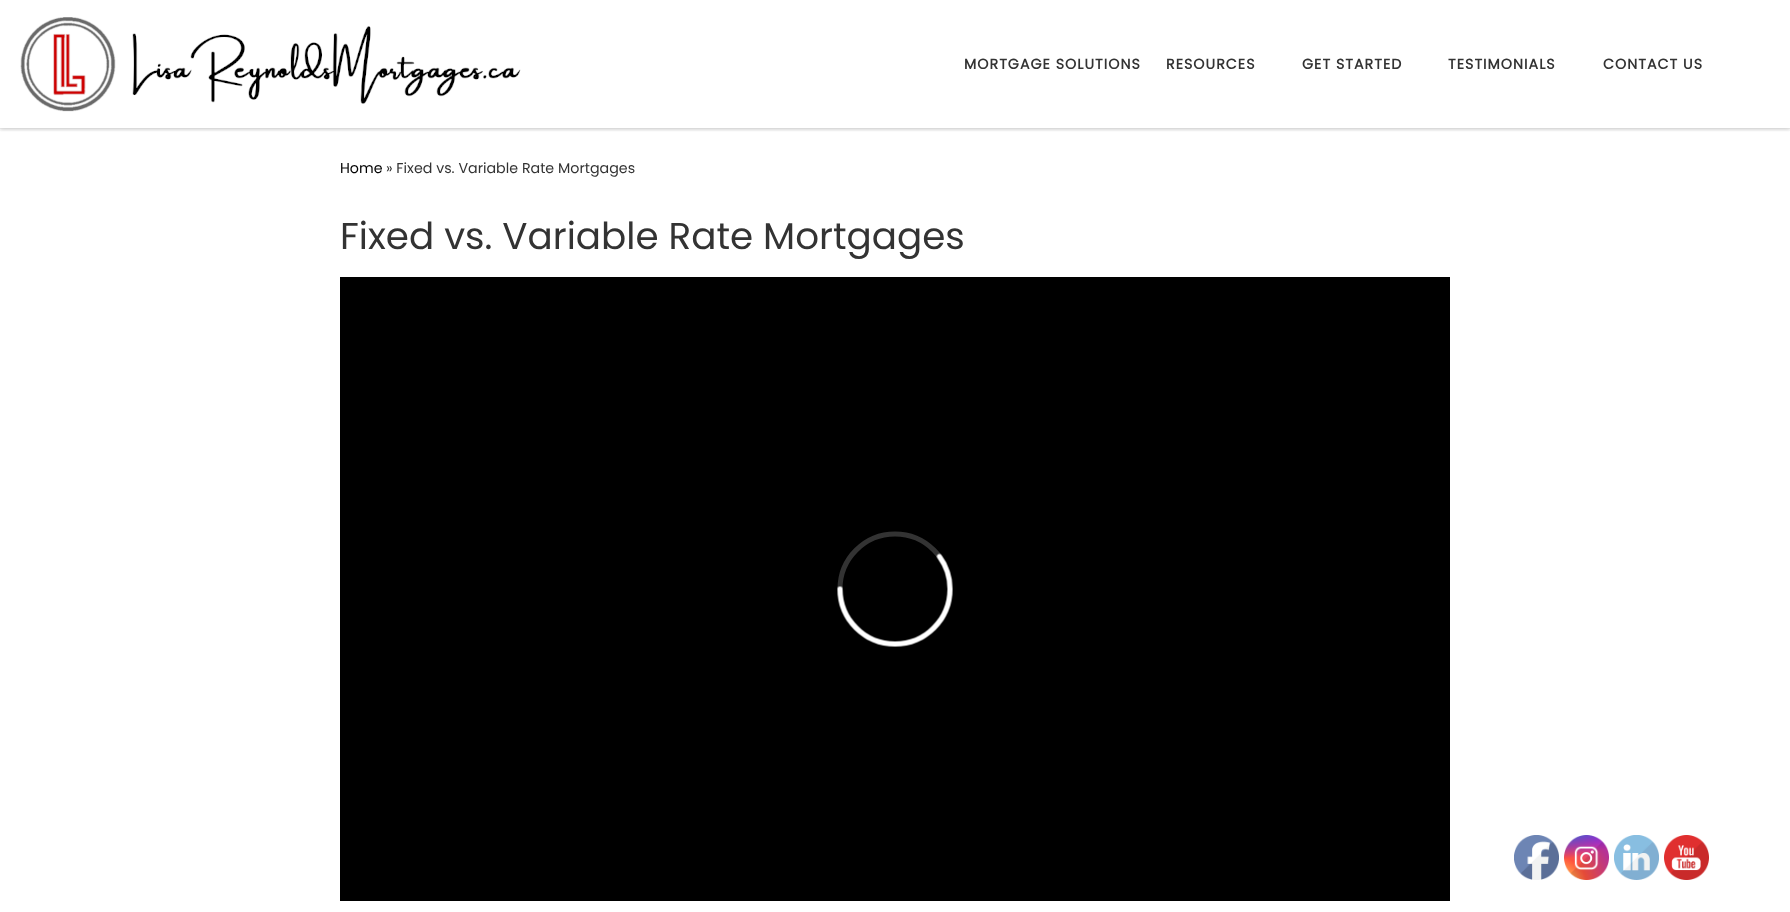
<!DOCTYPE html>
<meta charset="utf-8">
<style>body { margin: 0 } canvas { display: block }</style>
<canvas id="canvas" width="1790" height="912"></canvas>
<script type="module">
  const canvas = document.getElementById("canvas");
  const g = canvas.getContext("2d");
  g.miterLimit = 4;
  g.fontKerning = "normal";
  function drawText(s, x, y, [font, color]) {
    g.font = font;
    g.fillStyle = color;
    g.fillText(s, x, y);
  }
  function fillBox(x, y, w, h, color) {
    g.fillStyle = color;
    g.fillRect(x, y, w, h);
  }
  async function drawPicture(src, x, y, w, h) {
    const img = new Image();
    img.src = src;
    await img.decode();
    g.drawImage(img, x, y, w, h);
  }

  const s1 = ["bold 14.25px Poppins", "#333333"];
  const s2 = ["14.25px Poppins", "#000000"];
  const s3 = ["14.25px Poppins", "#333333"];
  const s4 = ["37.3px Poppins", "#333333"];

  fillBox(0, 0, 1790, 912, "#FFFFFF");
  g.save();
  g.beginPath();
  g.rect(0, 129, 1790, 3);
  g.clip();
  g.fillStyle = "rgba(102, 102, 102, 0.08)";
  g.filter = "blur(1px)";
  g.beginPath();
  g.rect(0, 2, 1790, 129);
  g.fill();
  g.filter = "none";
  g.restore();
  fillBox(0, 128, 1790, 1, "#EFEFEF");
  g.save();
  g.beginPath();
  g.rect(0, 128, 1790, 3);
  g.clip();
  g.fillStyle = "rgba(0, 0, 0, 0.2)";
  g.filter = "blur(2.5px)";
  g.beginPath();
  g.rect(0, 0, 1790, 128);
  g.fill();
  g.filter = "none";
  g.restore();
  await drawPicture("pic1.png", 20, 17, 501, 95);
  g.letterSpacing = "1px";
  drawText("MORTGAGE SOLUTIONS", 964, 69, s1);
  drawText("RESOURCES", 1166, 69, s1);
  drawText("GET STARTED", 1302, 69, s1);
  drawText("TESTIMONIALS", 1448, 69, s1);
  drawText("CONTACT US", 1603, 69, s1);
  g.letterSpacing = "0px";
  drawText("Home", 340, 173, s2);
  drawText("» Fixed vs. Variable Rate Mortgages", 386, 173, s3);
  drawText("Fixed vs. Variable Rate Mortgages", 340, 249, s4);
  await drawPicture("pic2.png", 340, 277, 1110, 624);
  await drawPicture("pic3.png", 1514, 835, 45, 45);
  await drawPicture("pic4.png", 1564, 835, 45, 45);
  await drawPicture("pic5.png", 1614, 835, 45, 45);
  await drawPicture("pic6.png", 1664, 835, 45, 45);
</script>
